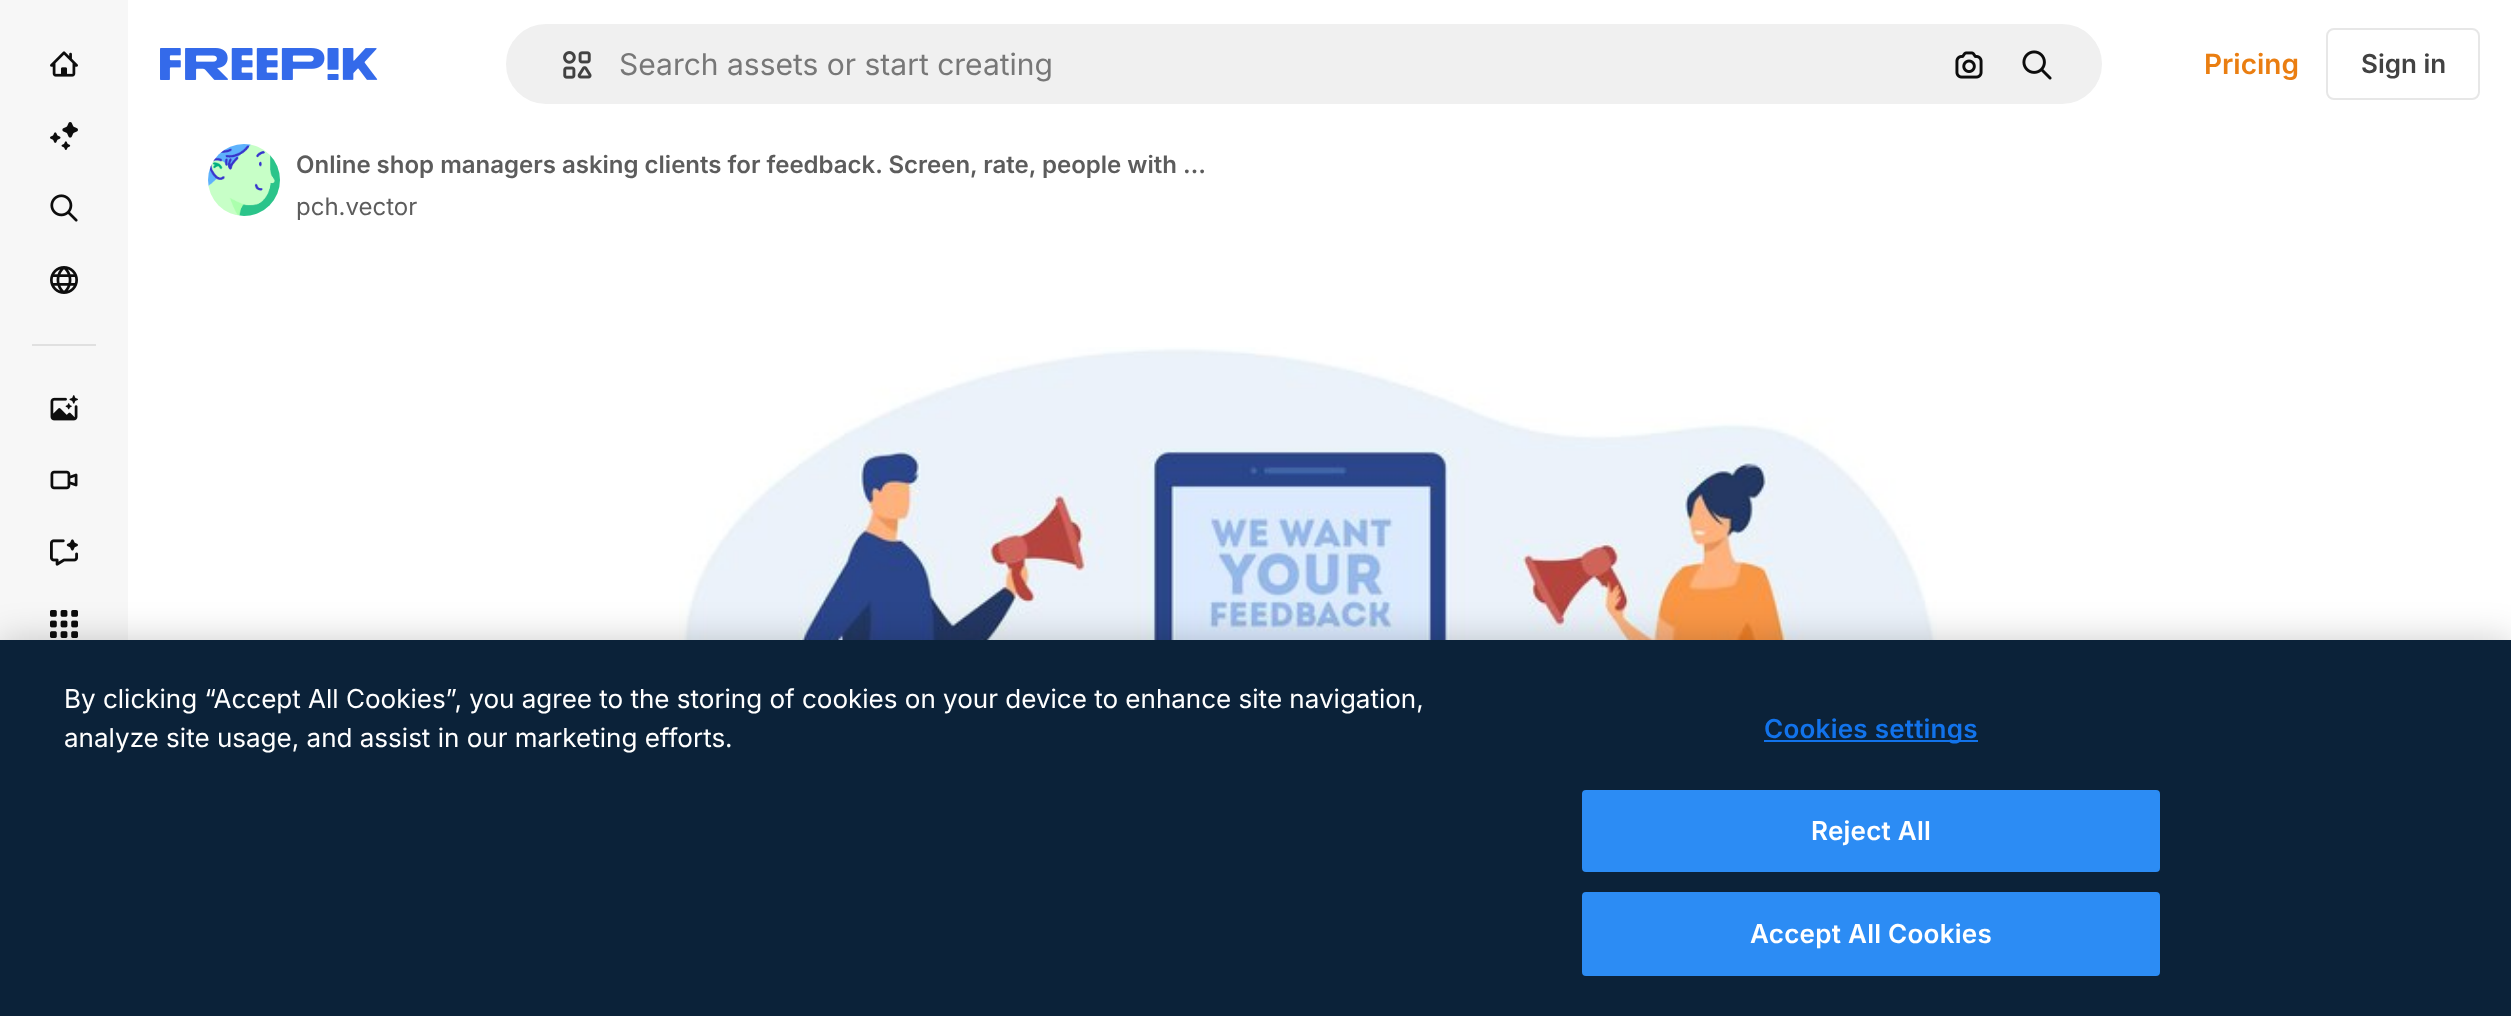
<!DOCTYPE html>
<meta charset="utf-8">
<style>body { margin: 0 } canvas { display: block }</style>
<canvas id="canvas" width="2511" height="1016"></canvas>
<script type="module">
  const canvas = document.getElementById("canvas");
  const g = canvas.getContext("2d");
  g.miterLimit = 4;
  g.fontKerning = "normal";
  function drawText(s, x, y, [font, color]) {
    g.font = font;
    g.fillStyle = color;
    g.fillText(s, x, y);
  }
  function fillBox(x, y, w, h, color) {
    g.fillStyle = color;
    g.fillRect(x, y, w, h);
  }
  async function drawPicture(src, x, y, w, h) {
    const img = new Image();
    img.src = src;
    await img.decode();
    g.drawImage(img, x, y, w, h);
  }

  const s1 = ["30px Inter", "#777777"];
  const s2 = ["600 28px Inter", "#EA7E11"];
  const s3 = ["600 26px Inter", "#424242"];
  const s4 = ["600 24px Inter", "#5C5C5C"];
  const s5 = ["24px Inter", "#5C5C5C"];
  const s6 = ["26.02px Inter", "#FFFFFF"];
  const s7 = ["600 26.02px Inter", "#1273EB"];
  const s8 = ["600 26.02px Inter", "#FFFFFF"];

  fillBox(0, 0, 2511, 1016, "#FFFFFF");
  fillBox(0, 0, 128, 640, "#F7F7F7");
  await drawPicture("pic1.png", 50, 51, 28, 26);
  await drawPicture("pic2.png", 50, 122, 28, 28);
  await drawPicture("pic3.png", 50, 194, 28, 28);
  await drawPicture("pic4.png", 50, 266, 28, 28);
  fillBox(32, 344, 64, 2, "#E0E0E0");
  await drawPicture("pic5.png", 50, 395, 28, 26);
  await drawPicture("pic6.png", 50, 470, 28, 20);
  await drawPicture("pic7.png", 50, 539, 28, 27);
  await drawPicture("pic8.png", 50, 610, 28, 28);
  await drawPicture("pic9.png", 160, 48, 218, 32);
  g.fillStyle = "#F0F0F0";
  g.beginPath();
  g.roundRect(505, 23, 1598, 82, 41);
  g.fill();
  g.strokeStyle = "#FFFFFF";
  g.lineWidth = 2;
  g.stroke();
  await drawPicture("pic10.png", 563, 51, 29, 28);
  drawText("Search assets or start creating", 619, 75, s1);
  await drawPicture("pic11.png", 1955, 51, 28, 28);
  await drawPicture("pic12.png", 2022, 50, 30, 30);
  drawText("Pricing", 2204, 74, s2);
  g.beginPath();
  g.roundRect(2327, 29, 152, 70, 7);
  g.strokeStyle = "#E7E7E7";
  g.stroke();
  drawText("Sign in", 2361, 73, s3);
  await drawPicture("pic13.png", 208, 144, 72, 72);
  drawText("Online shop managers asking clients for feedback. Screen, rate, people with …", 296, 173, s4);
  drawText("pch.vector", 296, 215, s5);
  await drawPicture("pic14.png", 679, 347, 1258, 293);
  g.fillStyle = "rgba(0, 0, 0, 0.2)";
  g.filter = "blur(18px)";
  g.beginPath();
  g.rect(0, 640, 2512, 376);
  g.fill();
  g.filter = "none";
  fillBox(0, 640, 2511, 376, "#0B2239");
  drawText("By clicking “Accept All Cookies”, you agree to the storing of cookies on your device to enhance site navigation,", 64, 708, s6);
  drawText("analyze site usage, and assist in our marketing efforts.", 64, 747, s6);
  fillBox(1764, 740, 214, 2, "#1273EB");
  g.letterSpacing = "0.25px";
  drawText("Cookies settings", 1764, 738, s7);
  g.fillStyle = "#2C8CF4";
  g.beginPath();
  g.roundRect(1583, 791, 576, 80, 3);
  g.fill();
  g.strokeStyle = "#2C8CF4";
  g.stroke();
  drawText("Reject All", 1811, 840, s8);
  g.fillStyle = "#2C8CF4";
  g.beginPath();
  g.roundRect(1583, 893, 576, 82, 3);
  g.fill();
  g.stroke();
  drawText("Accept All Cookies", 1750, 943, s8);
</script>
